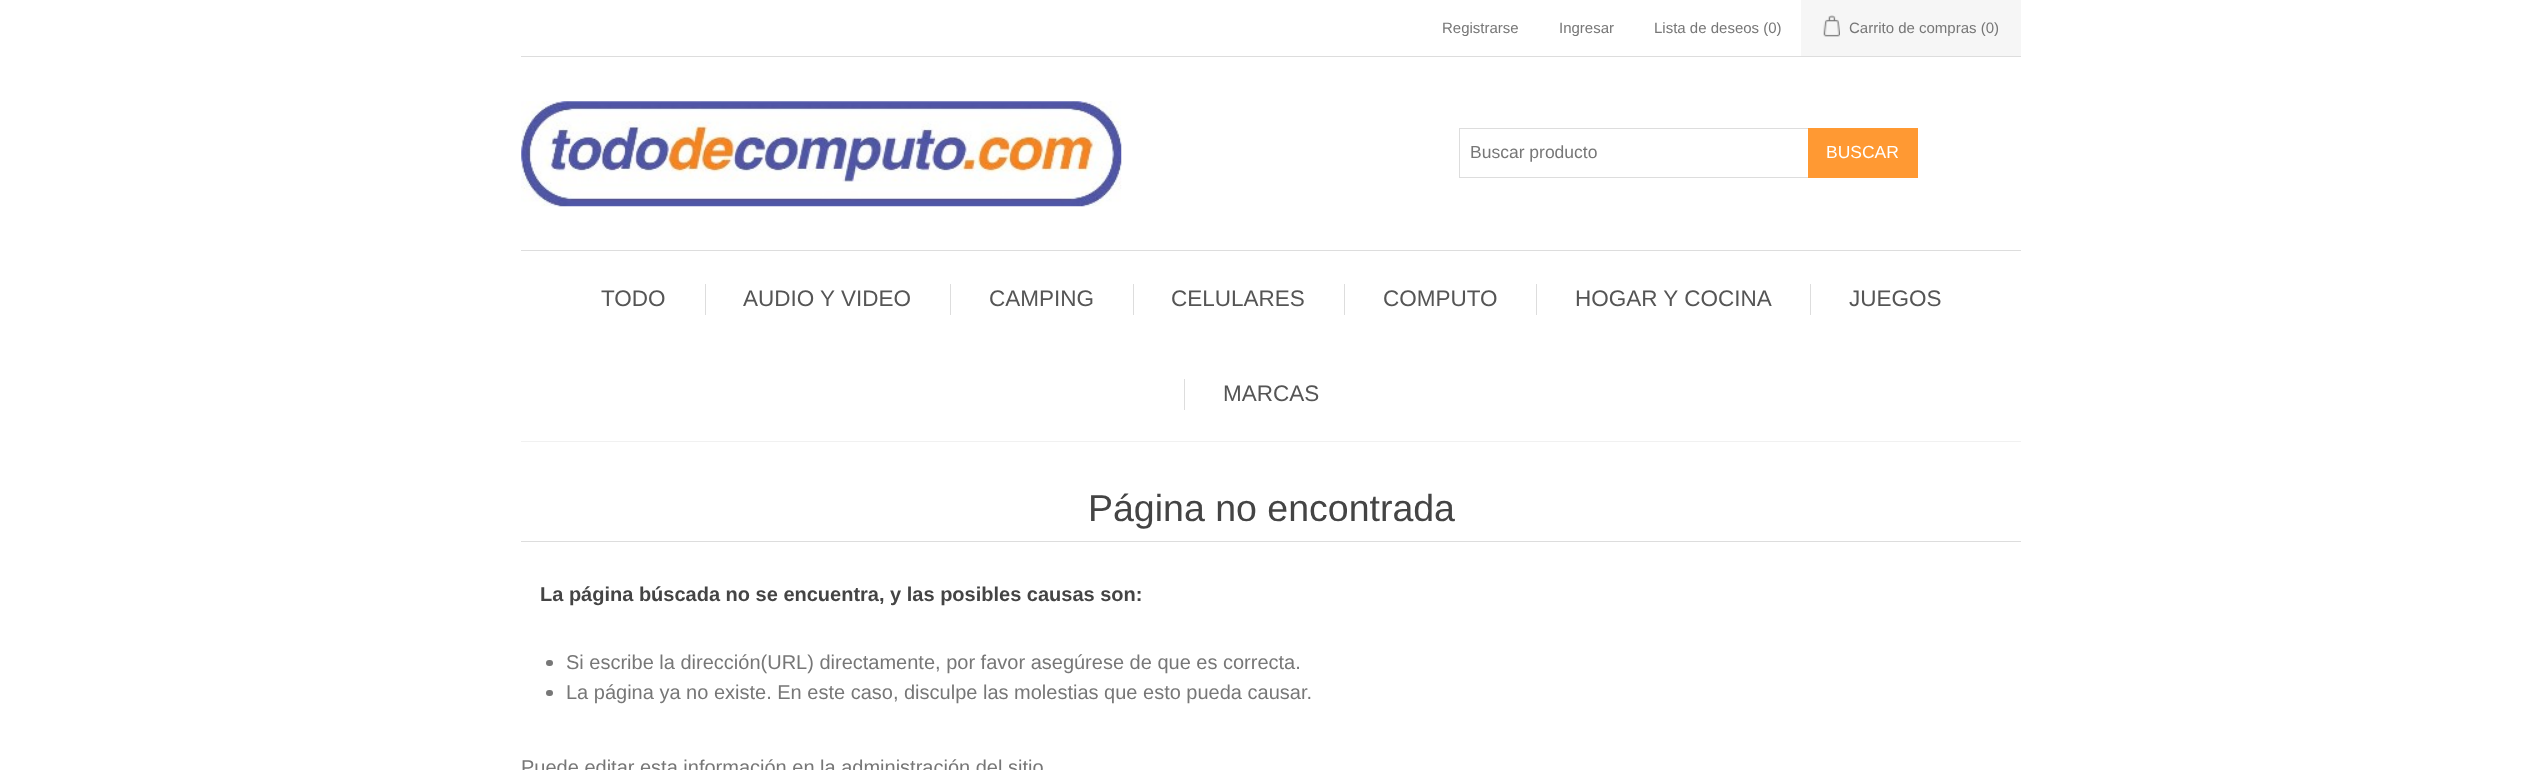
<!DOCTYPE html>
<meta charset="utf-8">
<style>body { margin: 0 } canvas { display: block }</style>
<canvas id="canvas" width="2542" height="770"></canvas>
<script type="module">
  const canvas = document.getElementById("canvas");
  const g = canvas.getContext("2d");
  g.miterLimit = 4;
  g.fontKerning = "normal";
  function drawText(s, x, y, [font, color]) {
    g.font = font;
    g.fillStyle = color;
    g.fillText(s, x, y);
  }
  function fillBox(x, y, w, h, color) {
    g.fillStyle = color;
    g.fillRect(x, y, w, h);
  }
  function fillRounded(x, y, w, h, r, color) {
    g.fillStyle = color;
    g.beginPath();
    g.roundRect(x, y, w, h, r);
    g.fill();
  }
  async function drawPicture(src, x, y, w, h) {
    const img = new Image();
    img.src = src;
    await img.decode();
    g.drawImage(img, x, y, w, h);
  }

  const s1 = ["15px Liberation Sans", "#777777"];
  const s2 = ["17.5px Liberation Sans", "#777777"];
  const s3 = ["17.5px Liberation Sans", "#FFFFFF"];
  const s4 = ["22.5px Liberation Sans", "#555555"];
  const s5 = ["37.5px Liberation Sans", "#444444"];
  const s6 = ["bold 20px Liberation Sans", "#444444"];
  const s7 = ["20px Liberation Sans", "#777777"];

  fillBox(0, 0, 2542, 770, "#FFFFFF");
  fillBox(521, 56, 1500, 1, "#DDDDDD");
  drawText("Registrarse", 1442, 33, s1);
  drawText("Ingresar", 1559, 33, s1);
  drawText("Lista de deseos (0)", 1654, 33, s1);
  fillBox(1801, 0, 220, 56, "#F6F6F6");
  await drawPicture("pic1.png", 1823, 15, 17, 22);
  drawText("Carrito de compras (0)", 1849, 33, s1);
  await drawPicture("pic2.png", 521, 101, 601, 106);
  g.strokeStyle = "#DDDDDD";
  g.strokeRect(1459.5, 128.5, 349, 49);
  drawText("Buscar producto", 1470, 158, s2);
  fillBox(1808, 128, 110, 50, "#FF9933");
  drawText("BUSCAR", 1826, 158, s3);
  fillBox(521, 250, 1500, 1, "#DDDDDD");
  fillBox(521, 441, 1500, 1, "#F1F1F1");
  drawText("TODO", 601, 306, s4);
  fillBox(705, 284, 1, 31, "#DDDDDD");
  drawText("AUDIO Y VIDEO", 743, 306, s4);
  fillBox(950, 284, 1, 31, "#DDDDDD");
  drawText("CAMPING", 989, 306, s4);
  fillBox(1133, 284, 1, 31, "#DDDDDD");
  drawText("CELULARES", 1171, 306, s4);
  fillBox(1344, 284, 1, 31, "#DDDDDD");
  drawText("COMPUTO", 1383, 306, s4);
  fillBox(1536, 284, 1, 31, "#DDDDDD");
  drawText("HOGAR Y COCINA", 1575, 306, s4);
  fillBox(1810, 284, 1, 31, "#DDDDDD");
  drawText("JUEGOS", 1849, 306, s4);
  fillBox(1184, 379, 1, 31, "#DDDDDD");
  drawText("MARCAS", 1223, 401, s4);
  fillBox(521, 541, 1500, 1, "#DDDDDD");
  drawText("Página no encontrada", 1088, 521, s5);
  drawText("La página búscada no se encuentra, y las posibles causas son:", 540, 601, s6);
  fillRounded(546, 660, 7, 6, 3, "#777777");
  drawText("Si escribe la dirección(URL) directamente, por favor asegúrese de que es correcta.", 566, 669, s7);
  fillRounded(546, 690, 7, 6, 3, "#777777");
  drawText("La página ya no existe. En este caso, disculpe las molestias que esto pueda causar.", 566, 699, s7);
  drawText("Puede editar esta información en la administración del sitio", 521, 774, s7);
</script>
